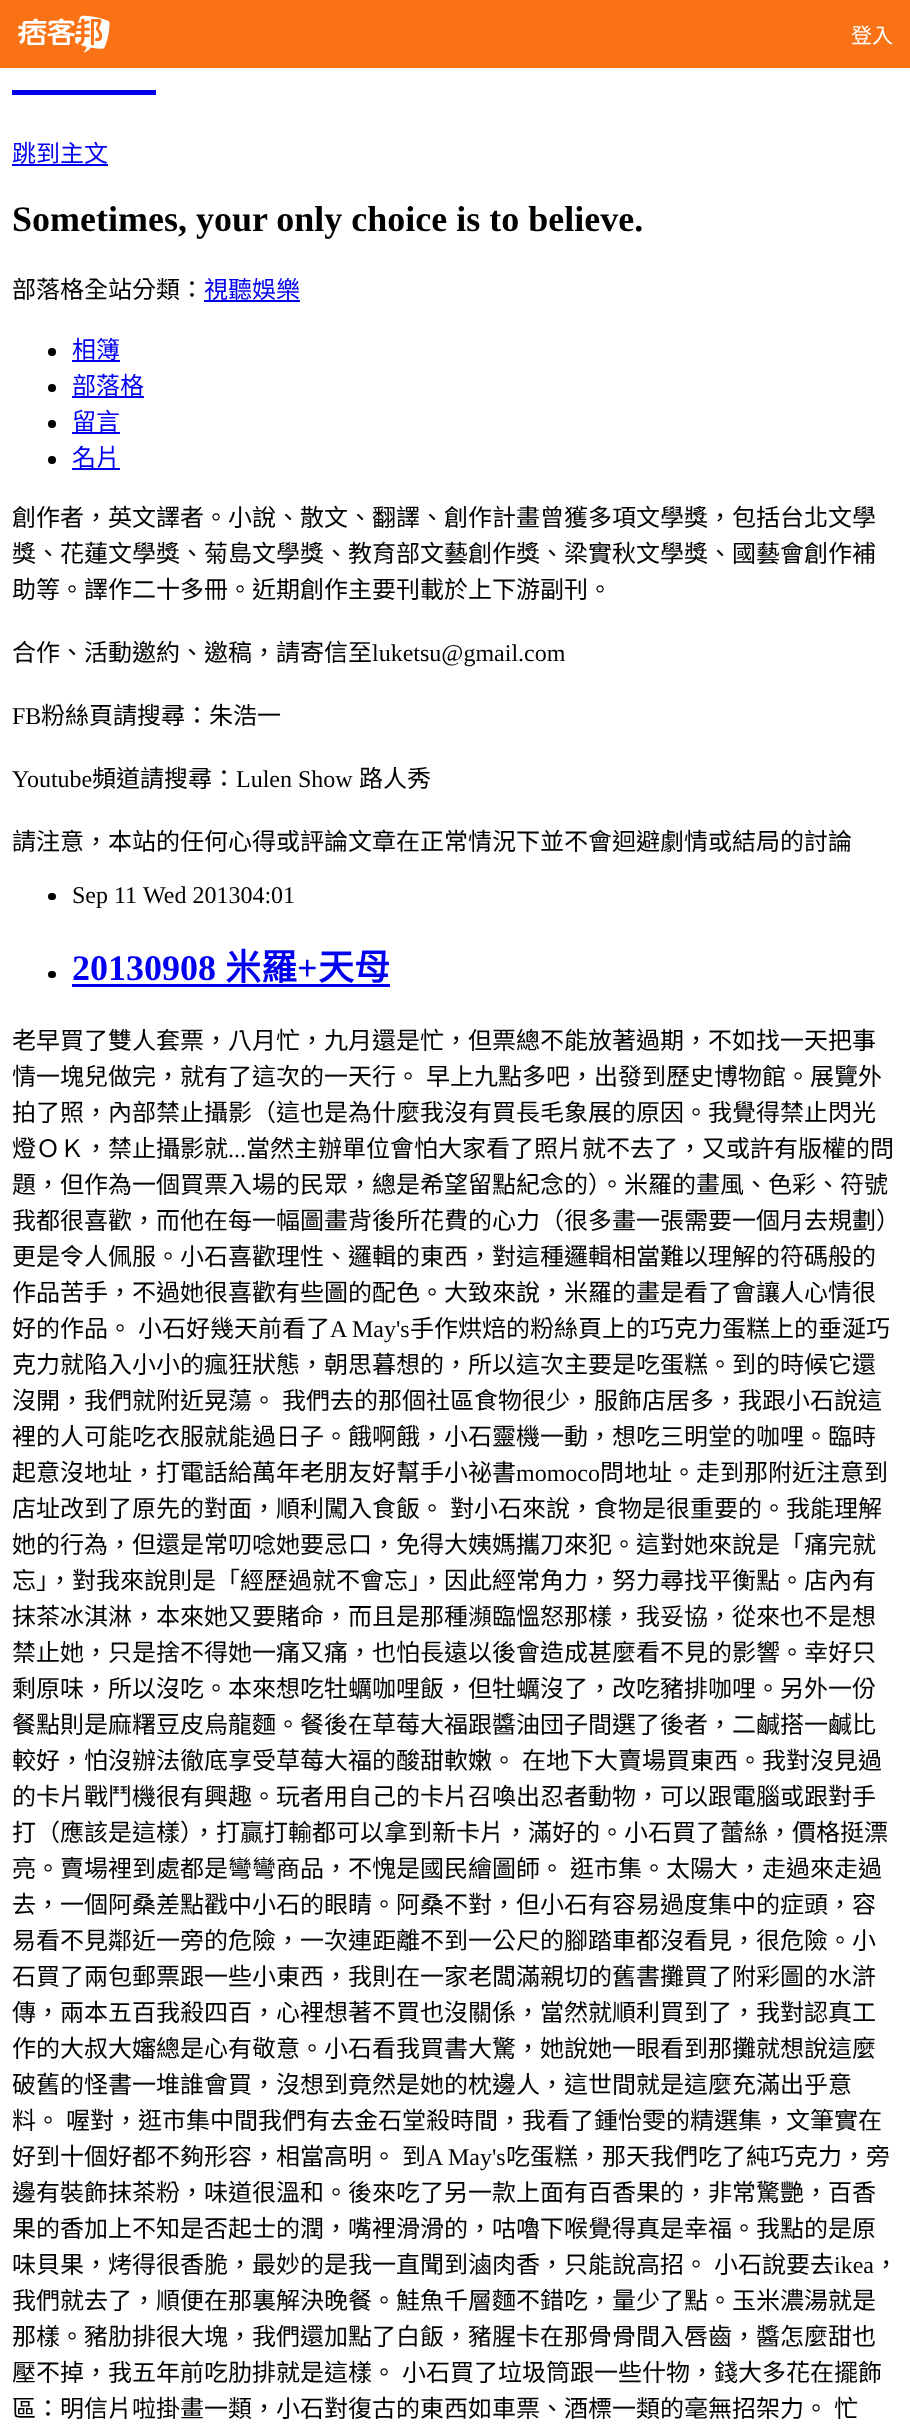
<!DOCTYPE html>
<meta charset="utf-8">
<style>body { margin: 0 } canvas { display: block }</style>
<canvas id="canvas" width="910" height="2434"></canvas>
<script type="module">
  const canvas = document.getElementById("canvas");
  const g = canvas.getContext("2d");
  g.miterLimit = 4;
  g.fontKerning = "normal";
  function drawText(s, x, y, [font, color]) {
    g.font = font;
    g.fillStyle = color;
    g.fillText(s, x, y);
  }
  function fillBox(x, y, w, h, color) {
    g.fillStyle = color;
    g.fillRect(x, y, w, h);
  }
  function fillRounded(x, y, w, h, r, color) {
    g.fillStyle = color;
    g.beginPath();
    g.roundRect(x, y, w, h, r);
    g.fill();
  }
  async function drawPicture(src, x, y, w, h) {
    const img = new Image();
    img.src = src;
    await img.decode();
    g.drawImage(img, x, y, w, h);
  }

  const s1 = ["21px Noto Sans CJK TC", "#FFFFFF"];
  const s2 = ["24px Noto Sans CJK TC", "#0000EE"];
  const s3 = ["bold 36px Liberation Serif", "#000000"];
  const s4 = ["24px Noto Sans CJK TC", "#000000"];
  const s5 = ["24px Liberation Serif", "#000000"];
  const s6 = ["bold 36px Liberation Serif", "#0000EE"];
  const s7 = ["bold 36px Noto Sans CJK TC", "#0000EE"];

  fillBox(0, 0, 910, 2434, "#FFFFFF");
  g.fillStyle = "rgba(0, 0, 0, 0.05)";
  g.filter = "blur(1.5px)";
  g.beginPath();
  g.rect(0, 2, 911, 67);
  g.fill();
  g.filter = "none";
  fillBox(0, 0, 910, 68, "#F97316");
  await drawPicture("pic1.png", 18, 15, 92, 38);
  drawText("登入", 851, 43, s1);
  fillBox(12, 90, 144, 5, "#0000EE");
  drawText("跳到主文", 12, 162, s2);
  fillBox(12, 164, 96, 2, "#0000EE");
  drawText("Sometimes, your only choice is to believe.", 12, 231, s3);
  drawText("部落格全站分類：", 12, 298, s4);
  drawText("視聽娛樂", 204, 298, s2);
  fillBox(204, 300, 96, 2, "#0000EE");
  g.fillStyle = "#000000";
  g.beginPath();
  g.arc(52, 352, 4, 0, Math.PI * 2);
  g.fill();
  drawText("相簿", 72, 358, s2);
  fillBox(72, 360, 48, 2, "#0000EE");
  g.fillStyle = "#000000";
  g.beginPath();
  g.arc(52, 388, 4, 0, Math.PI * 2);
  g.fill();
  drawText("部落格", 72, 394, s2);
  fillBox(72, 396, 72, 2, "#0000EE");
  g.fillStyle = "#000000";
  g.beginPath();
  g.arc(52, 424, 4, 0, Math.PI * 2);
  g.fill();
  drawText("留言", 72, 430, s2);
  fillBox(72, 432, 48, 2, "#0000EE");
  g.fillStyle = "#000000";
  g.beginPath();
  g.arc(52, 460, 4, 0, Math.PI * 2);
  g.fill();
  drawText("名片", 72, 466, s2);
  fillBox(72, 468, 48, 2, "#0000EE");
  drawText("創作者，英文譯者。小說、散文、翻譯、創作計畫曾獲多項文學獎，包括台北文學", 12, 526, s4);
  drawText("獎、花蓮文學獎、菊島文學獎、教育部文藝創作獎、梁實秋文學獎、國藝會創作補", 12, 562, s4);
  drawText("助等。譯作二十多冊。近期創作主要刊載於上下游副刊。", 12, 598, s4);
  drawText("合作、活動邀約、邀稿，請寄信至", 12, 661, s4);
  drawText("luketsu@gmail.com", 372, 661, s5);
  drawText("FB", 12, 724, s5);
  drawText("粉絲頁請搜尋：朱浩一", 41, 724, s4);
  drawText("Youtube", 12, 787, s5);
  drawText("頻道請搜尋：", 92, 787, s4);
  drawText("Lulen Show", 236, 787, s5);
  drawText("路人秀", 359, 787, s4);
  drawText("請注意，本站的任何心得或評論文章在正常情況下並不會迴避劇情或結局的討論", 12, 850, s4);
  fillRounded(48, 893, 8, 7, 3.5, "#000000");
  drawText("Sep 11", 72, 903, s5);
  drawText("Wed 201304:01", 143, 903, s5);
  fillRounded(48, 971, 8, 7, 3.5, "#000000");
  drawText("20130908", 72, 980, s6);
  fillBox(72, 984, 318, 3, "#0000EE");
  drawText("米羅", 225, 980, s7);
  drawText("+", 297, 980, s6);
  drawText("天母", 318, 980, s7);
  drawText("老早買了雙人套票，八月忙，九月還是忙，但票總不能放著過期，不如找一天把事", 12, 1049, s4);
  drawText("情一塊兒做完，就有了這次的一天行。", 12, 1085, s4);
  drawText("早上九點多吧，出發到歷史博物館。展覽外", 426, 1085, s4);
  drawText("拍了照，內部禁止攝影（這也是為什麼我沒有買長毛象展的原因。我覺得禁止閃光", 12, 1121, s4);
  drawText("燈ＯＫ，禁止攝影就", 12, 1157, s4);
  drawText("...", 228, 1157, s5);
  drawText("當然主辦單位會怕大家看了照片就不去了，又或許有版權的問", 246, 1157, s4);
  drawText("題，但作為一個買票入場的民眾，總是希望留點紀念的）。米羅的畫風、色彩、符號", 12, 1193, s4);
  drawText("我都很喜歡，而他在每一幅圖畫背後所花費的心力（很多畫一張需要一個月去規劃）", 12, 1229, s4);
  drawText("更是令人佩服。小石喜歡理性、邏輯的東西，對這種邏輯相當難以理解的符碼般的", 12, 1265, s4);
  drawText("作品苦手，不過她很喜歡有些圖的配色。大致來說，米羅的畫是看了會讓人心情很", 12, 1301, s4);
  drawText("好的作品。", 12, 1337, s4);
  drawText("小石好幾天前看了", 138, 1337, s4);
  drawText("A May's", 330, 1337, s5);
  drawText("手作烘焙的粉絲頁上的巧克力蛋糕上的垂涎巧", 410, 1337, s4);
  drawText("克力就陷入小小的瘋狂狀態，朝思暮想的，所以這次主要是吃蛋糕。到的時候它還", 12, 1373, s4);
  drawText("沒開，我們就附近晃蕩。", 12, 1409, s4);
  drawText("我們去的那個社區食物很少，服飾店居多，我跟小石說這", 282, 1409, s4);
  drawText("裡的人可能吃衣服就能過日子。餓啊餓，小石靈機一動，想吃三明堂的咖哩。臨時", 12, 1445, s4);
  drawText("起意沒地址，打電話給萬年老朋友好幫手小祕書", 12, 1481, s4);
  drawText("momoco", 516, 1481, s5);
  drawText("問地址。走到那附近注意到", 600, 1481, s4);
  drawText("店址改到了原先的對面，順利闖入食飯。", 12, 1517, s4);
  drawText("對小石來說，食物是很重要的。我能理解", 450, 1517, s4);
  drawText("她的行為，但還是常叨唸她要忌口，免得大姨媽攜刀來犯。這對她來說是「痛完就", 12, 1553, s4);
  drawText("忘」，對我來說則是「經歷過就不會忘」，因此經常角力，努力尋找平衡點。店內有", 12, 1589, s4);
  drawText("抹茶冰淇淋，本來她又要賭命，而且是那種瀕臨慍怒那樣，我妥協，從來也不是想", 12, 1625, s4);
  drawText("禁止她，只是捨不得她一痛又痛，也怕長遠以後會造成甚麼看不見的影響。幸好只", 12, 1661, s4);
  drawText("剩原味，所以沒吃。本來想吃牡蠣咖哩飯，但牡蠣沒了，改吃豬排咖哩。另外一份", 12, 1697, s4);
  drawText("餐點則是麻糬豆皮烏龍麵。餐後在草莓大福跟醬油団子間選了後者，二鹹搭一鹹比", 12, 1733, s4);
  drawText("較好，怕沒辦法徹底享受草莓大福的酸甜軟嫩。", 12, 1769, s4);
  drawText("在地下大賣場買東西。我對沒見過", 522, 1769, s4);
  drawText("的卡片戰鬥機很有興趣。玩者用自己的卡片召喚出忍者動物，可以跟電腦或跟對手", 12, 1805, s4);
  drawText("打（應該是這樣），打贏打輸都可以拿到新卡片，滿好的。小石買了蕾絲，價格挺漂", 12, 1841, s4);
  drawText("亮。賣場裡到處都是彎彎商品，不愧是國民繪圖師。", 12, 1877, s4);
  drawText("逛市集。太陽大，走過來走過", 570, 1877, s4);
  drawText("去，一個阿桑差點戳中小石的眼睛。阿桑不對，但小石有容易過度集中的症頭，容", 12, 1913, s4);
  drawText("易看不見鄰近一旁的危險，一次連距離不到一公尺的腳踏車都沒看見，很危險。小", 12, 1949, s4);
  drawText("石買了兩包郵票跟一些小東西，我則在一家老闆滿親切的舊書攤買了附彩圖的水滸", 12, 1985, s4);
  drawText("傳，兩本五百我殺四百，心裡想著不買也沒關係，當然就順利買到了，我對認真工", 12, 2021, s4);
  drawText("作的大叔大嬸總是心有敬意。小石看我買書大驚，她說她一眼看到那攤就想說這麼", 12, 2057, s4);
  drawText("破舊的怪書一堆誰會買，沒想到竟然是她的枕邊人，這世間就是這麼充滿出乎意", 12, 2093, s4);
  drawText("料。", 12, 2129, s4);
  drawText("喔對，逛市集中間我們有去金石堂殺時間，我看了鍾怡雯的精選集，文筆實在", 66, 2129, s4);
  drawText("好到十個好都不夠形容，相當高明。", 12, 2165, s4);
  drawText("到", 402, 2165, s4);
  drawText("A May's", 426, 2165, s5);
  drawText("吃蛋糕，那天我們吃了純巧克力，旁", 506, 2165, s4);
  drawText("邊有裝飾抹茶粉，味道很溫和。後來吃了另一款上面有百香果的，非常驚艷，百香", 12, 2201, s4);
  drawText("果的香加上不知是否起士的潤，嘴裡滑滑的，咕嚕下喉覺得真是幸福。我點的是原", 12, 2237, s4);
  drawText("味貝果，烤得很香脆，最妙的是我一直聞到滷肉香，只能說高招。", 12, 2273, s4);
  drawText("小石說要去", 714, 2273, s4);
  drawText("ikea", 834, 2273, s5);
  drawText("，", 874, 2273, s4);
  drawText("我們就去了，順便在那裏解決晚餐。鮭魚千層麵不錯吃，量少了點。玉米濃湯就是", 12, 2309, s4);
  drawText("那樣。豬肋排很大塊，我們還加點了白飯，豬腥卡在那骨骨間入唇齒，醬怎麼甜也", 12, 2345, s4);
  drawText("壓不掉，我五年前吃肋排就是這樣。", 12, 2381, s4);
  drawText("小石買了垃圾筒跟一些什物，錢大多花在擺飾", 402, 2381, s4);
  drawText("區：明信片啦掛畫一類，小石對復古的東西如車票、酒標一類的毫無招架力。", 12, 2417, s4);
  drawText("忙", 834, 2417, s4);
</script>
